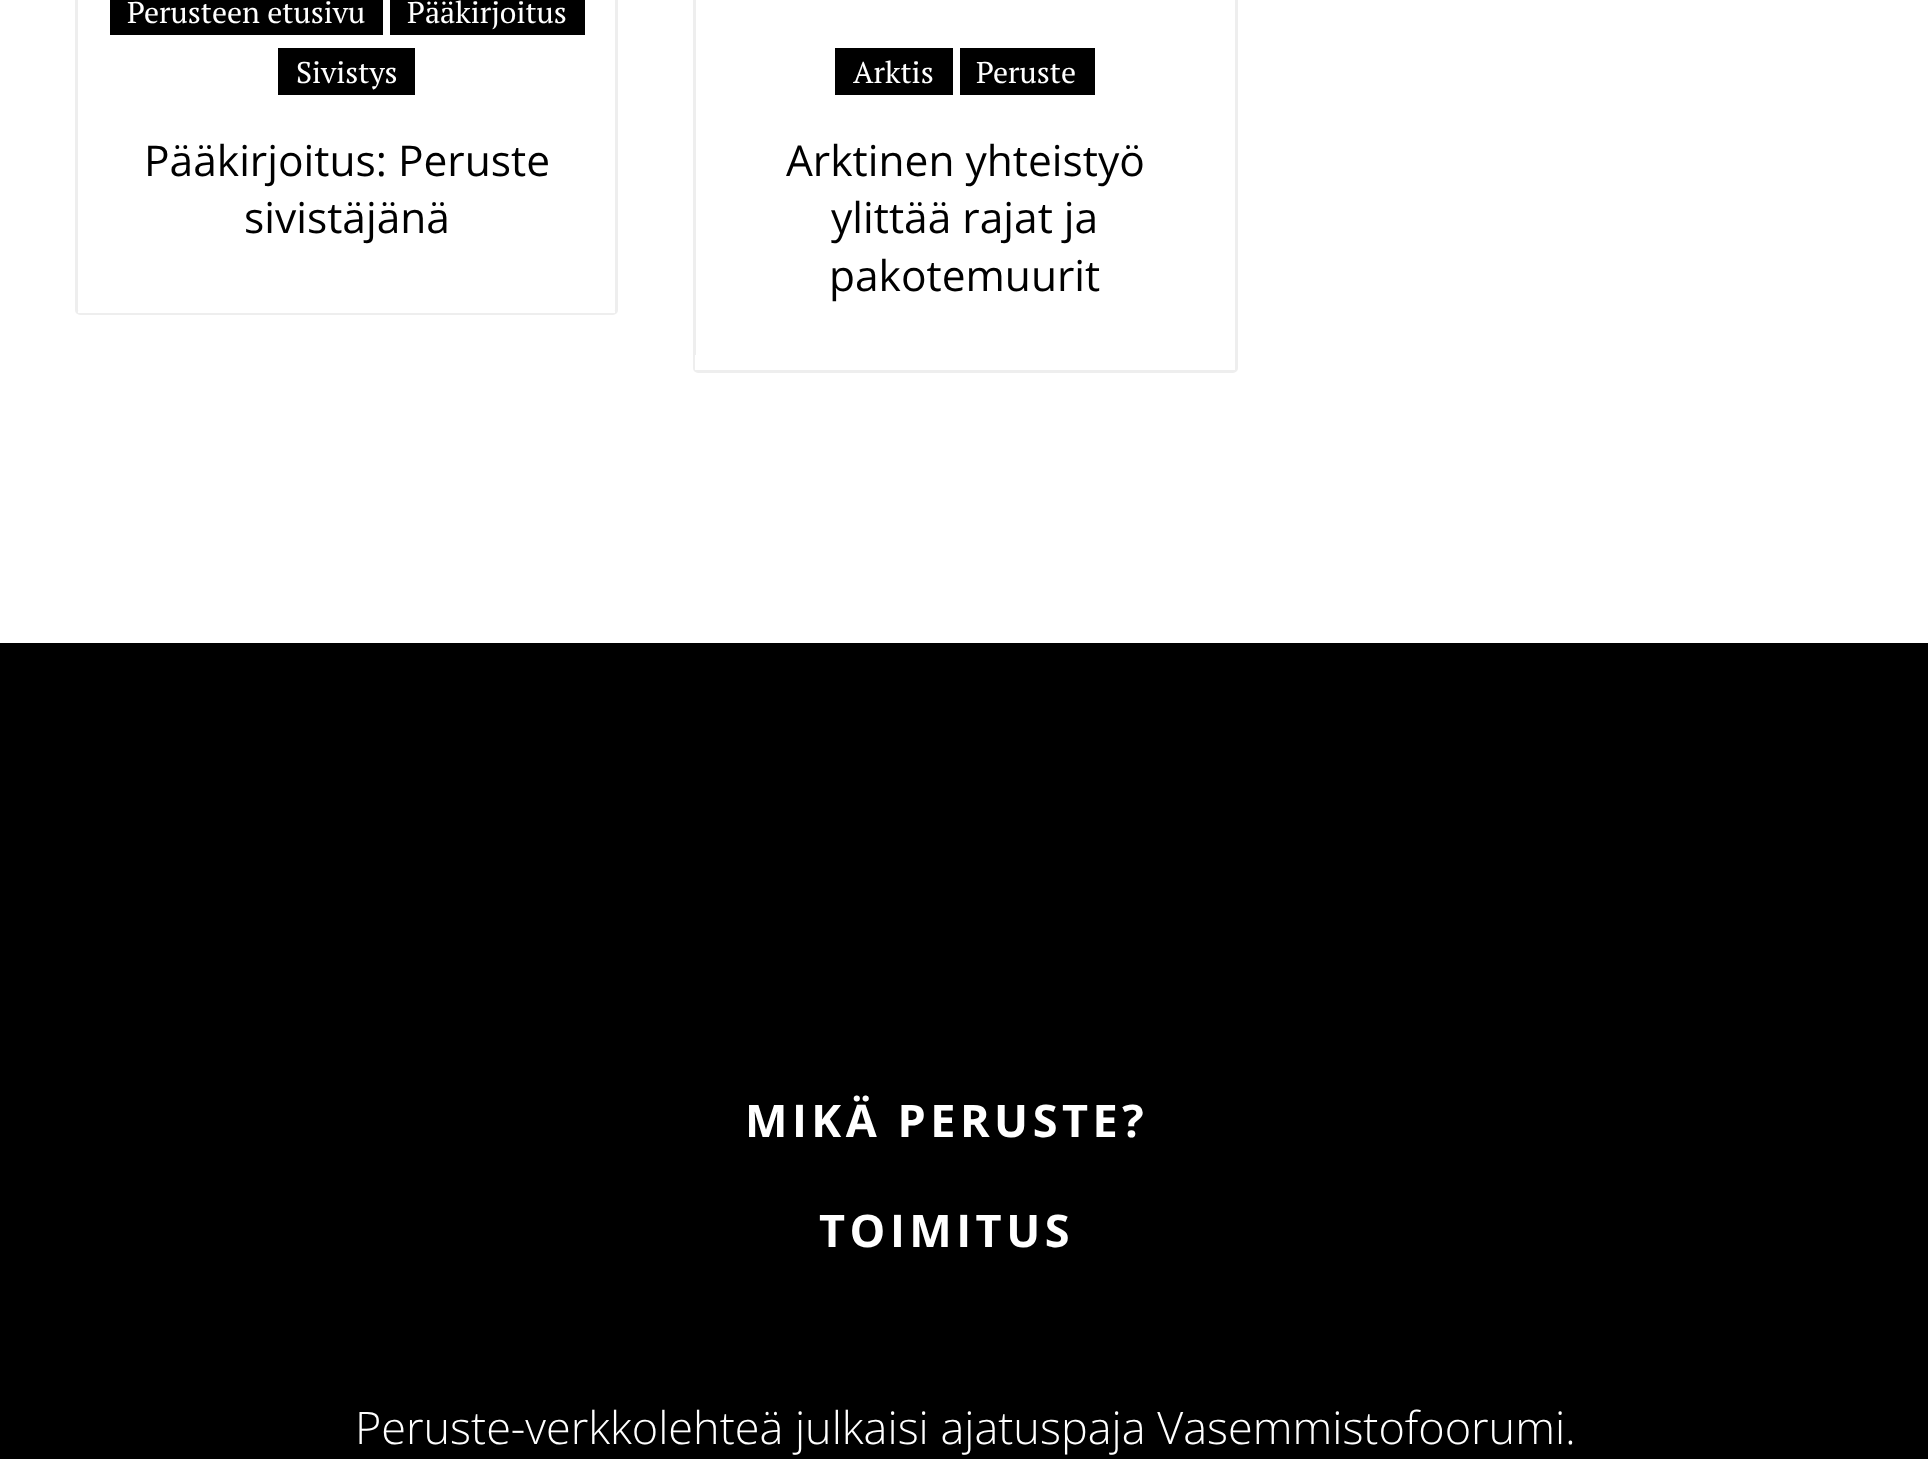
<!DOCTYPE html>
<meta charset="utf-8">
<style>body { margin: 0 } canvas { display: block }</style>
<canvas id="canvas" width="1928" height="1459"></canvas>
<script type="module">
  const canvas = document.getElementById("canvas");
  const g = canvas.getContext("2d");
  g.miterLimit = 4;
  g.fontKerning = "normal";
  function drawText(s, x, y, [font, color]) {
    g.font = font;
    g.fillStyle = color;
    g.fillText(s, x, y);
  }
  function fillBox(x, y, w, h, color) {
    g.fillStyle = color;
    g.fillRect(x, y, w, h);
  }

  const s1 = ["30px PT Serif", "#FFFFFF"];
  const s2 = ["42.5px Open Sans", "#000000"];
  const s3 = ["bold 45px Open Sans", "#FFFFFF"];
  const s4 = ["300 45px Open Sans", "#FFFFFF"];

  fillBox(0, 0, 1928, 1459, "#FFFFFF");
  g.beginPath();
  g.roundRect(76.5, -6.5, 540, 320, 3.5);
  g.strokeStyle = "#EEEEEE";
  g.lineWidth = 3;
  g.stroke();
  fillBox(110, 0, 273, 35, "#000000");
  drawText("Perusteen etusivu", 127, 23, s1);
  fillBox(390, 0, 195, 35, "#000000");
  drawText("Pääkirjoitus", 407, 23, s1);
  fillBox(278, 48, 137, 47, "#000000");
  drawText("Sivistys", 296, 83, s1);
  drawText("Pääkirjoitus: Peruste", 144, 176, s2);
  drawText("sivistäjänä", 244, 233, s2);
  fillBox(78, 311, 537, 2, "#FFFFFF");
  g.beginPath();
  g.roundRect(694.5, -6.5, 542, 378, 3.5);
  g.stroke();
  fillBox(835, 48, 118, 47, "#000000");
  drawText("Arktis", 853, 83, s1);
  fillBox(960, 48, 135, 47, "#000000");
  drawText("Peruste", 976, 83, s1);
  drawText("Arktinen yhteistyö", 786, 176, s2);
  drawText("ylittää rajat ja", 831, 233, s2);
  drawText("pakotemuurit", 829, 291, s2);
  fillBox(695, 355, 540, 15, "#FFFFFF");
  fillBox(0, 643, 1928, 816, "#000000");
  g.letterSpacing = "4.5px";
  drawText("MIKÄ PERUSTE?", 745, 1137, s3);
  drawText("TOIMITUS", 819, 1247, s3);
  g.letterSpacing = "0px";
  drawText("Peruste-verkkolehteä julkaisi ajatuspaja Vasemmistofoorumi.", 355, 1444, s4);
</script>
